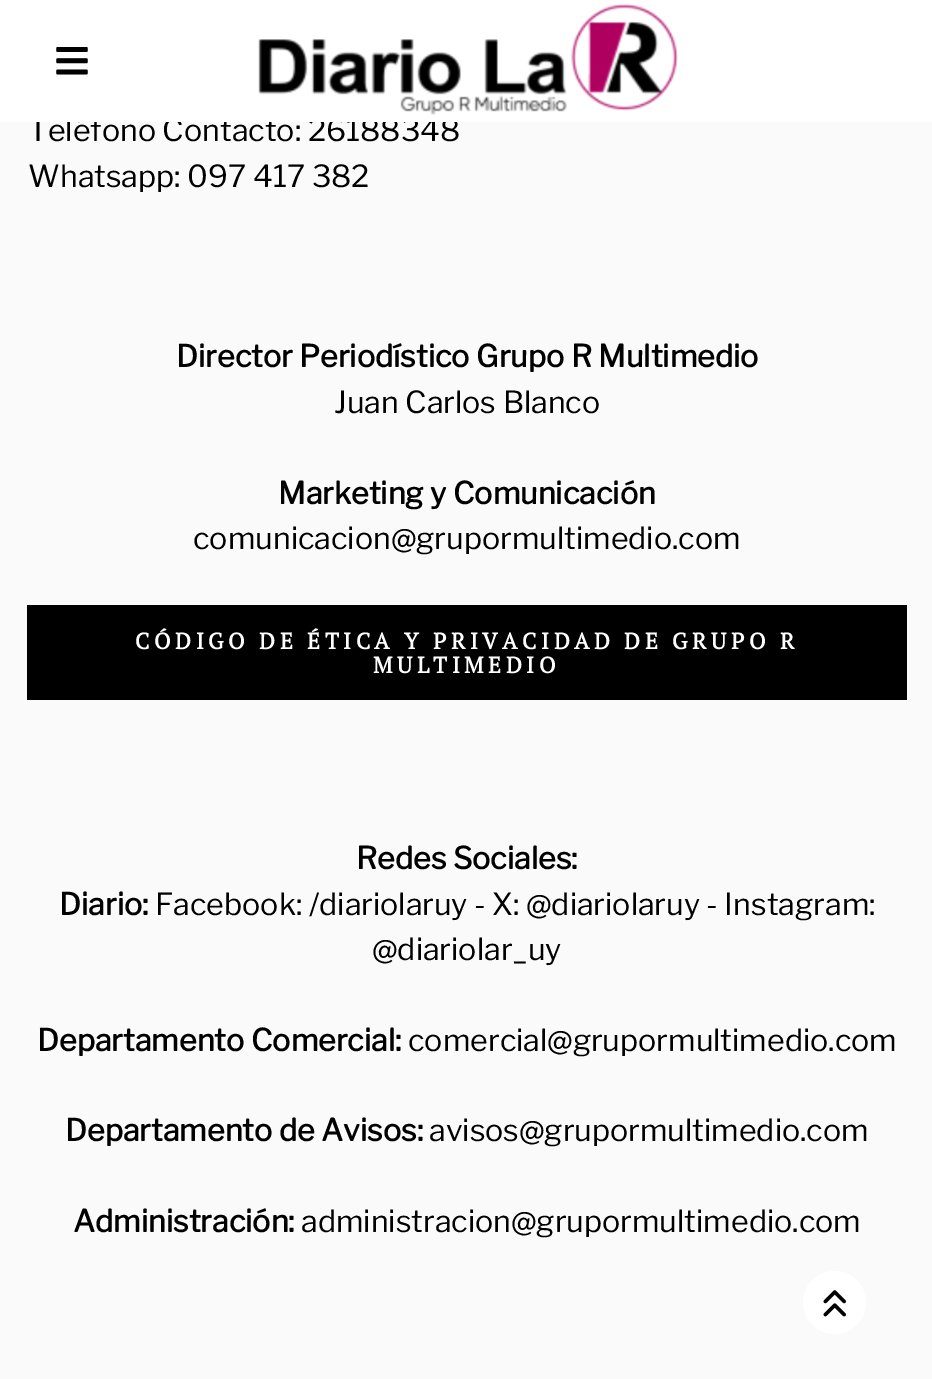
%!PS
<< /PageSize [932 1379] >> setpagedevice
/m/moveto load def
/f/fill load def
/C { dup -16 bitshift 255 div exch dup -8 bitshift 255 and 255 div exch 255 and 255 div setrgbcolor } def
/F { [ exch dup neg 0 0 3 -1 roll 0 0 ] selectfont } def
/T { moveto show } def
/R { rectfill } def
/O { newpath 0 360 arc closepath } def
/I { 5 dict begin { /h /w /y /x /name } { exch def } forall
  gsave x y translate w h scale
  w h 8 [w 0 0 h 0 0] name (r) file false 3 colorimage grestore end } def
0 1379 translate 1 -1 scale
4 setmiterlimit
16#FAFAFA C
0 0 932 1379 R
/LibreFranklin-Thin 30.4 F
16#000000 C
(Teléfono Contacto: 26188348) 28 141 T
16#FFFFFF C
0 0 932 122 R
(1.rgb) 56 47 32 28 I
(2.rgb) 258 3 420 112 I
16#000000 C
(Whatsapp: 097 417 382) 28 187 T
/LibreFranklin-Bold 30.4 F
(Director Periodístico Grupo R Multimedio) 176 367 T
/LibreFranklin-Thin 30.4 F
(Juan Carlos Blanco) 334 413 T
/LibreFranklin-Bold 30.4 F
(Marketing y Comunicación) 278 504 T
/LibreFranklin-Thin 30.4 F
(comunicacion@grupormultimedio.com) 193 549 T
27 605 880 95 R
/PTSerif-Bold 22.5 F
16#FFFFFF C
135 649 m 4.5 0 (CÓDIGO DE ÉTICA Y PRIVACIDAD DE GRUPO R) ashow
373 673 m 4.5 0 (MULTIMEDIO) ashow
/LibreFranklin-Bold 30.4 F
16#000000 C
(Redes Sociales:) 356 869 T
(Diario:) 59 915 T
/LibreFranklin-Thin 30.4 F
(Facebook: /diariolaruy - X: @diariolaruy - Instagram:) 155 915 T
(@diariolar_uy) 372 960 T
/LibreFranklin-Bold 30.4 F
(Departamento Comercial:) 37 1051 T
/LibreFranklin-Thin 30.4 F
(comercial@grupormultimedio.com) 408 1051 T
/LibreFranklin-Bold 30.4 F
(Departamento de Avisos:) 65 1141 T
/LibreFranklin-Thin 30.4 F
(avisos@grupormultimedio.com) 429 1141 T
/LibreFranklin-Bold 30.4 F
(Administración:) 73 1232 T
/LibreFranklin-Thin 30.4 F
(administracion@grupormultimedio.com) 301 1232 T
16#FFFFFF C
834.5 1302.5 31.5 O f
(3.rgb) 823 1290 23 27 I
showpage
